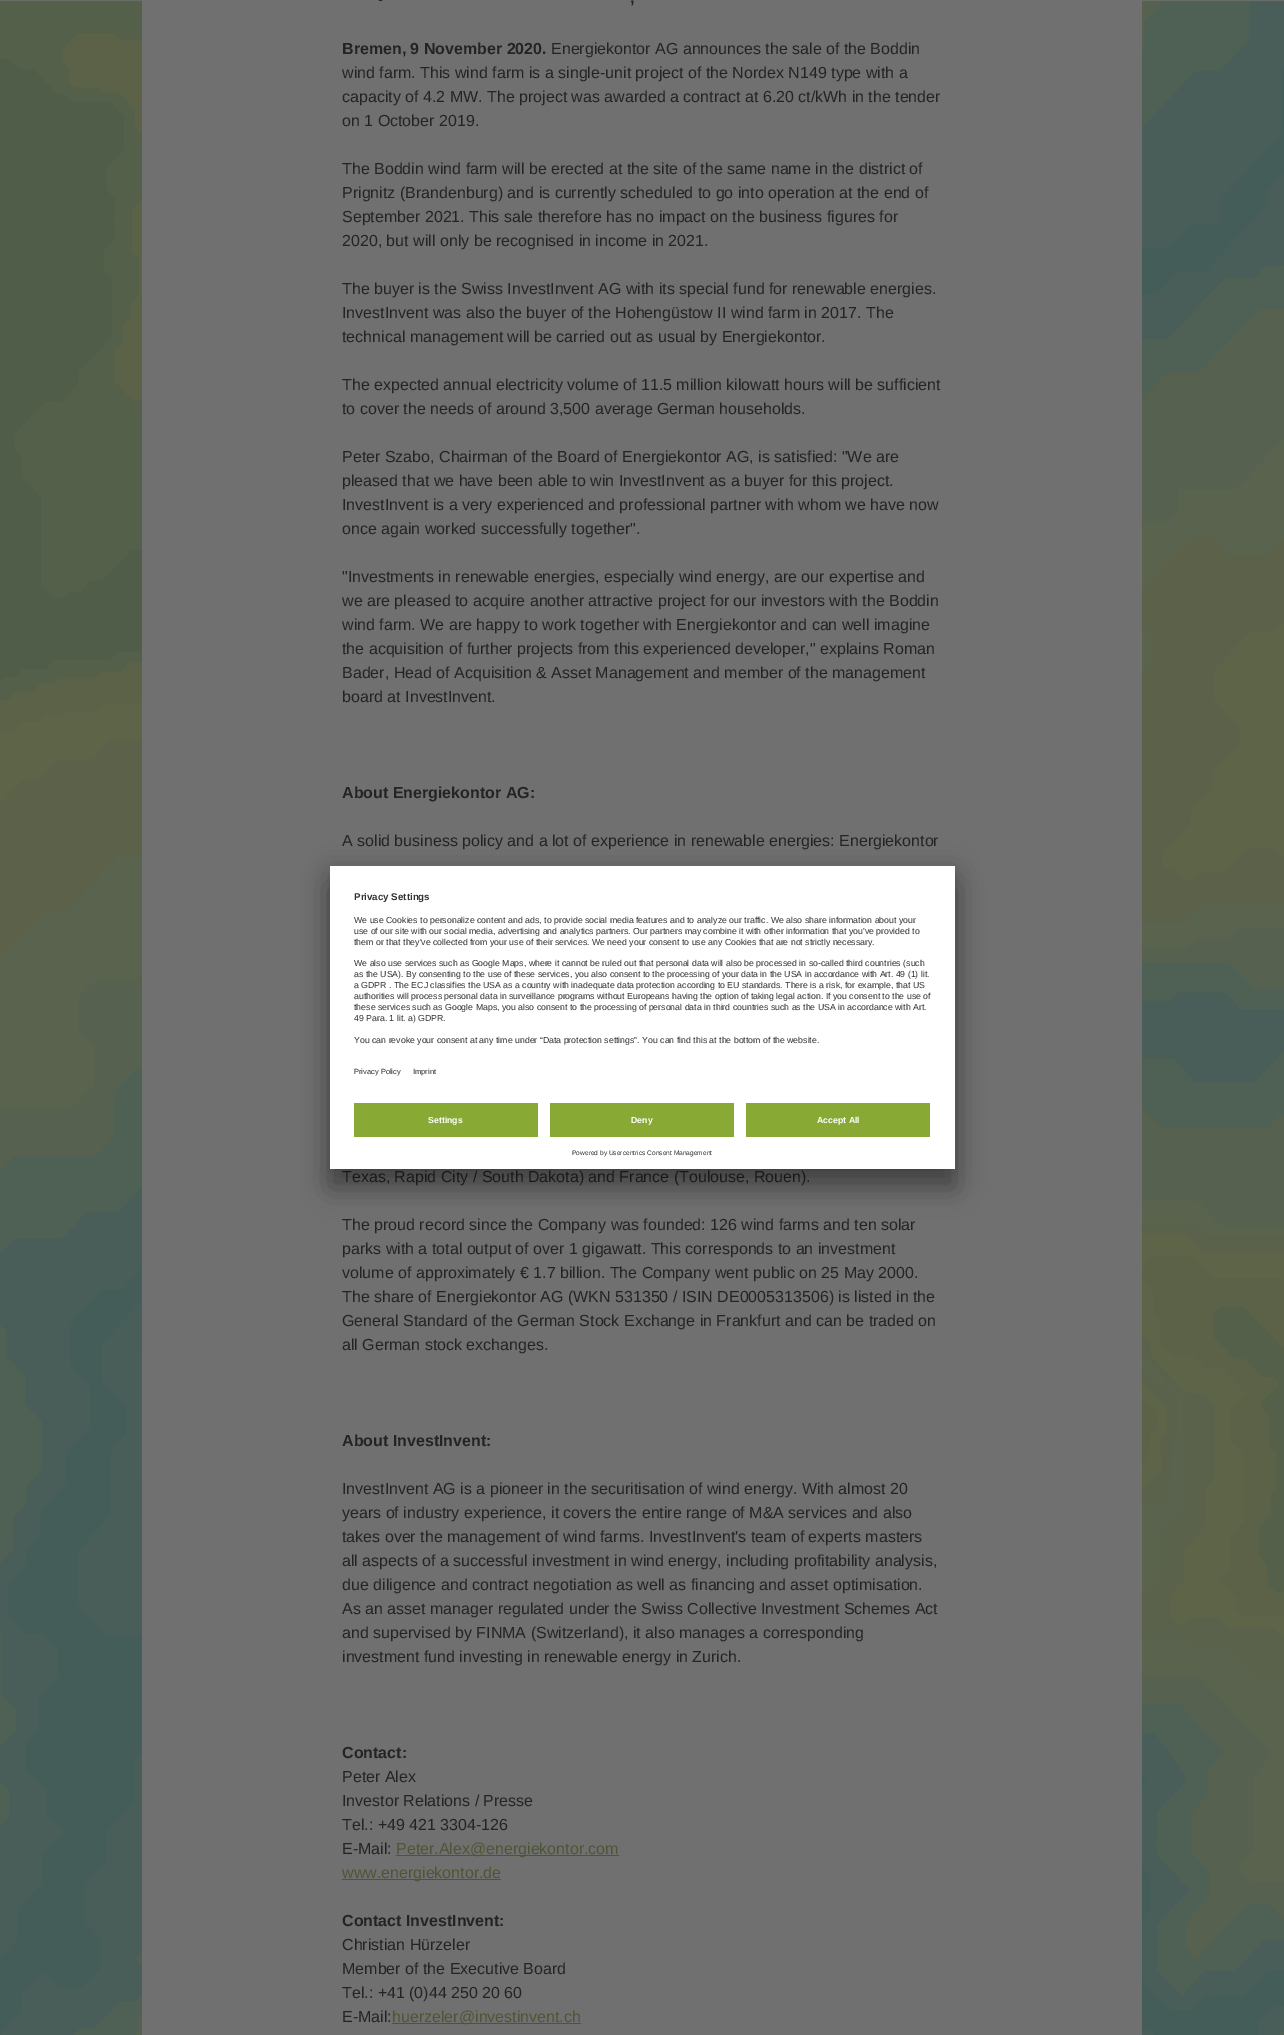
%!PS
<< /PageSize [1284 2035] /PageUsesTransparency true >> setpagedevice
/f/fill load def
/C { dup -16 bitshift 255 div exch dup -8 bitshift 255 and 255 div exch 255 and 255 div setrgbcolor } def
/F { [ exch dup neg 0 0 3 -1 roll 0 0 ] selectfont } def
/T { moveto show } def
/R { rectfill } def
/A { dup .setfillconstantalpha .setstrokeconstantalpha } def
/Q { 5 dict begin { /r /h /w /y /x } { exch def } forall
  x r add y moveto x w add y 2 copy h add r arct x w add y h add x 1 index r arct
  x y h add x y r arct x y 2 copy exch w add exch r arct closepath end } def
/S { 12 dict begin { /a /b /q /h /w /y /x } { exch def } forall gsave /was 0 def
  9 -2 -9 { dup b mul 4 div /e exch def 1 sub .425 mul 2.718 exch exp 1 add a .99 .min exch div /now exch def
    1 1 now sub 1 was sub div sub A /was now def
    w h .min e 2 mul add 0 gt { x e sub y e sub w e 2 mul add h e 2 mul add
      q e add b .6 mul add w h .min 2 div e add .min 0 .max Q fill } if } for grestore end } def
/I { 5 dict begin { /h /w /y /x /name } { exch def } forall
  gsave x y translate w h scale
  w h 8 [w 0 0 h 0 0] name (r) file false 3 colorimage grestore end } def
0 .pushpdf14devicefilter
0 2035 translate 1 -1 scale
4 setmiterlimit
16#FFFFFF C
0 0 1284 2035 R
(1.rgb) 0 0 1284 2035 I
16#707070 C
142 0 1000 2035 R
16#242424 C
378 -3 5 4 2.5 Q f
/LiberationSans-Bold 16 F
(,) 630 3 T
(Bremen, 9 November 2020.) 342 54 T
/LiberationSans-Regular 16 F
(Energiekontor AG announces the sale of the Boddin) 551 54 T
(wind farm. This wind farm is a single-unit project of the Nordex N149 type with a) 342 78 T
(capacity of 4.2 MW. The project was awarded a contract at 6.20 ct/kWh in the tender) 342 102 T
(on 1 October 2019.) 342 126 T
(The Boddin wind farm will be erected at the site of the same name in the district of) 342 174 T
(Prignitz \(Brandenburg\) and is currently scheduled to go into operation at the end of) 342 198 T
(September 2021. This sale therefore has no impact on the business figures for) 342 222 T
(2020, but will only be recognised in income in 2021.) 342 246 T
(The buyer is the Swiss InvestInvent AG with its special fund for renewable energies.) 342 294 T
(InvestInvent was also the buyer of the Hohengüstow II wind farm in 2017. The) 342 318 T
(technical management will be carried out as usual by Energiekontor.) 342 342 T
(The expected annual electricity volume of 11.5 million kilowatt hours will be sufficient) 342 390 T
(to cover the needs of around 3,500 average German households.) 342 414 T
(Peter Szabo, Chairman of the Board of Energiekontor AG, is satisfied: "We are) 342 462 T
(pleased that we have been able to win InvestInvent as a buyer for this project.) 342 486 T
(InvestInvent is a very experienced and professional partner with whom we have now) 342 510 T
(once again worked successfully together".) 342 534 T
("Investments in renewable energies, especially wind energy, are our expertise and) 342 582 T
(we are pleased to acquire another attractive project for our investors with the Boddin) 342 606 T
(wind farm. We are happy to work together with Energiekontor and can well imagine) 342 630 T
(the acquisition of further projects from this experienced developer," explains Roman) 342 654 T
(Bader, Head of Acquisition & Asset Management and member of the management) 342 678 T
(board at InvestInvent.) 342 702 T
/LiberationSans-Bold 16 F
(About Energiekontor AG:) 342 798 T
/LiberationSans-Regular 16 F
(A solid business policy and a lot of experience in renewable energies: Energiekontor) 342 846 T
(Texas, Rapid City / South Dakota\) and France \(Toulouse, Rouen\).) 342 1182 T
(The proud record since the Company was founded: 126 wind farms and ten solar) 342 1230 T
(parks with a total output of over 1 gigawatt. This corresponds to an investment) 342 1254 T
(volume of approximately € 1.7 billion. The Company went public on 25 May 2000.) 342 1278 T
(The share of Energiekontor AG \(WKN 531350 / ISIN DE0005313506\) is listed in the) 342 1302 T
(General Standard of the German Stock Exchange in Frankfurt and can be traded on) 342 1326 T
(all German stock exchanges.) 342 1350 T
/LiberationSans-Bold 16 F
(About InvestInvent:) 342 1446 T
/LiberationSans-Regular 16 F
(InvestInvent AG is a pioneer in the securitisation of wind energy. With almost 20) 342 1494 T
(years of industry experience, it covers the entire range of M&A services and also) 342 1518 T
(takes over the management of wind farms. InvestInvent's team of experts masters) 342 1542 T
(all aspects of a successful investment in wind energy, including profitability analysis,) 342 1566 T
(due diligence and contract negotiation as well as financing and asset optimisation.) 342 1590 T
(As an asset manager regulated under the Swiss Collective Investment Schemes Act) 342 1614 T
(and supervised by FINMA \(Switzerland\), it also manages a corresponding) 342 1638 T
(investment fund investing in renewable energy in Zurich.) 342 1662 T
/LiberationSans-Bold 16 F
(Contact:) 342 1758 T
/LiberationSans-Regular 16 F
(Peter Alex) 342 1782 T
(Investor Relations / Presse) 342 1806 T
(Tel.: +49 421 3304-126) 342 1830 T
(E-Mail:) 342 1854 T
16#4D5633 C
396 1855 223 1 R
(Peter.Alex@energiekontor.com) 396 1854 T
342 1879 159 1 R
(www.energiekontor.de) 342 1878 T
/LiberationSans-Bold 16 F
16#242424 C
(Contact InvestInvent:) 342 1926 T
/LiberationSans-Regular 16 F
(Christian Hürzeler) 342 1950 T
(Member of the Executive Board) 342 1974 T
(Tel.: +41 \(0\)44 250 20 60) 342 1998 T
(E-Mail:) 342 2022 T
16#4D5633 C
392 2023 189 1 R
(huerzeler@investinvent.ch) 392 2022 T
16#000000 C
330 886 625 303 0 14 .3 S
330 871 625 303 0 13 .22 S
16#FFFFFF C
330 866 625 303 R
/LiberationSans-Bold 9.75 F
16#303030 C
(Privacy Settings) 354 900 T
/LiberationSans-Regular 8.75 F
(We use Cookies to personalize content and ads, to provide social media features and to analyze our traffic. We also share information about your) 354 923 T
(use of our site with our social media, advertising and analytics partners. Our partners may combine it with other information that you've provided to) 354 934 T
(them or that they've collected from your use of their services. We need your consent to use any Cookies that are not strictly necessary.) 354 945 T
(We also use services such as Google Maps, where it cannot be ruled out that personal data will also be processed in so-called third countries \(such) 354 966 T
(as the USA\). By consenting to the use of these services, you also consent to the processing of your data in the USA in accordance with Art. 49 \(1\) lit.) 354 977 T
(a GDPR . The ECJ classifies the USA as a country with inadequate data protection according to EU standards. There is a risk, for example, that US) 354 988 T
(authorities will process personal data in surveillance programs without Europeans having the option of taking legal action. If you consent to the use of) 354 999 T
(these services such as Google Maps, you also consent to the processing of personal data in third countries such as the USA in accordance with Art.) 354 1010 T
(49 Para. 1 lit. a\) GDPR.) 354 1021 T
(You can revoke your consent at any time under “Data protection settings”. You can find this at the bottom of the website.) 354 1043 T
/LiberationSans-Regular 7.5 F
(Privacy Policy) 354 1074 T
(Imprint) 413 1074 T
16#88A933 C
354 1103 184 34 R
/LiberationSans-Bold 8.75 F
16#FFFFFF C
(Settings) 428 1123 T
16#88A933 C
550 1103 184 34 R
16#FFFFFF C
(Deny) 631 1123 T
16#88A933 C
746 1103 184 34 R
16#FFFFFF C
(Accept All) 817 1123 T
/LiberationSans-Regular 6.6 F
16#303030 C
(Powered by Usercentrics Consent Management) 572 1155 T
.poppdf14devicefilter showpage
